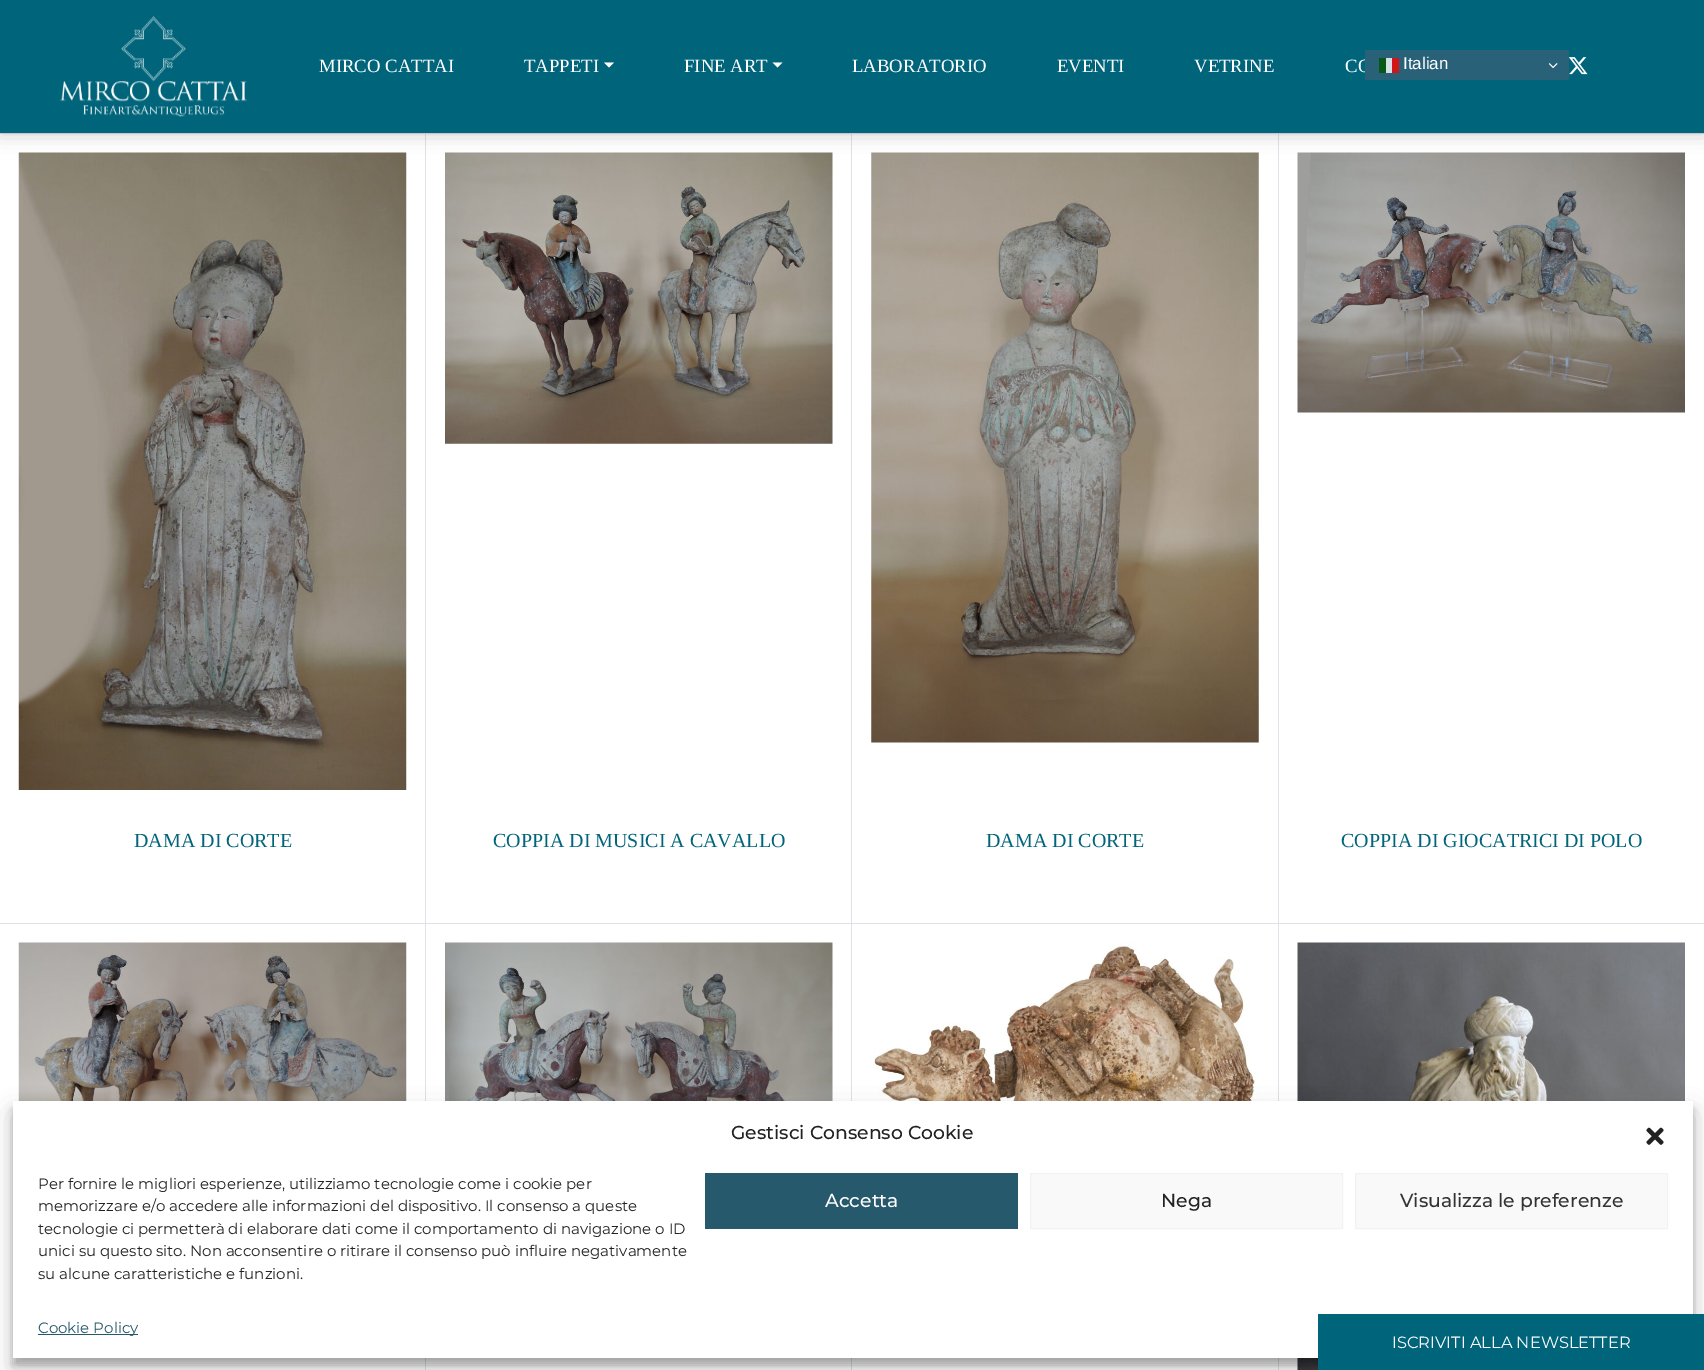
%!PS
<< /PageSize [1704 1370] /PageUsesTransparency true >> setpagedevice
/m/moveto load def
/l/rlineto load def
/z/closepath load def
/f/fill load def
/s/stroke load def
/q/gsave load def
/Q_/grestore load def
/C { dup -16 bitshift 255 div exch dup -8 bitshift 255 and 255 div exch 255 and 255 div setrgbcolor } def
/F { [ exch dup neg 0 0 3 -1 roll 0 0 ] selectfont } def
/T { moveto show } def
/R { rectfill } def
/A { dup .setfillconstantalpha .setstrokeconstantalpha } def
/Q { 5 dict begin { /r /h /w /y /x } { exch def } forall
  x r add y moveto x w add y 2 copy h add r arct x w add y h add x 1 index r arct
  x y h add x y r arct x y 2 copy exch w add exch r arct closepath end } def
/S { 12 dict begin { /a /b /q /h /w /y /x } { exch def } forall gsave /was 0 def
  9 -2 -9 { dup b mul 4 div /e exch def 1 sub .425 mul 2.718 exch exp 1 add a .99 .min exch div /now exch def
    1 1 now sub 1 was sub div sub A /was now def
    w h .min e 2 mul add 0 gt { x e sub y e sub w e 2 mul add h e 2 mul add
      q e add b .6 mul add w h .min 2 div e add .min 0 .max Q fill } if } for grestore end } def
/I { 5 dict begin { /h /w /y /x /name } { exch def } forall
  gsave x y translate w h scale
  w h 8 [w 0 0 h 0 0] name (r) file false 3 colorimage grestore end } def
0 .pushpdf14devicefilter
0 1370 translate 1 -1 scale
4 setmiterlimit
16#FFFFFF C
0 0 1704 1370 R
16#DEE2E6 C
0 133 1704 1 R
425 133 1 790 R
(4.rgb) 18 152 389 638 I
851 133 1 790 R
(5.rgb) 445 152 388 292 I
1278 133 1 790 R
(6.rgb) 871 152 388 591 I
(7.rgb) 1297 152 388 261 I
16#333333 C
0 0 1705 133 0 9.5 .3 S
16#00647A C
0 0 1704 133 R
/LiberationSerif-Regular 18.75 F
16#FFFFFF C
(CO) 1345 72 T
16#296278 C
1365 50 204 30 R
16#085918 C
1379 58 7 15 R
16#D4E0E4 C
1386 58 6 15 R
16#D21418 C
1392 58 7 15 R
/LiberationSans-Regular 17 F
16#FFFFFF C
(Italian) 1403 69 T
(1.rgb) 1549 63 9 6 I
(2.rgb) 60 16 187 101 I
/LiberationSerif-Regular 18.75 F
(MIRCO CATTAI) 319 72 T
(TAPPETI) 524 72 T
604 62.5 m 10 0 l -5 5 l z f
(FINE ART) 684 72 T
772.5 62.5 m 10 0 l -5 5 l z f
(LABORATORIO) 852 72 T
(EVENTI) 1057 72 T
(VETRINE) 1194 72 T
(3.rgb) 1569 57 19 18 I
/LiberationSerif-Regular 20 F
16#00647A C
(DAMA DI CORTE) 134 847 T
(COPPIA DI MUSICI A CAVALLO) 493 847 T
(DAMA DI CORTE) 986 847 T
(COPPIA DI GIOCATRICI DI POLO) 1341 847 T
16#DEE2E6 C
0 923 1704 1 R
425 923 1 447 R
(8.rgb) 18 942 389 159 I
851 923 1 447 R
(9.rgb) 445 942 388 159 I
1278 923 1 447 R
(10.rgb) 871 942 388 159 I
(11.rgb) 1297 942 388 428 I
16#000000 C
13 1109 1680 256 0 4 .23 S
13 1114 1680 256 0 12.5 .19 S
16#FFFFFF C
13 1101 1680 257 R
/Montserrat-Medium 18.75 F
16#222222 C
(Gestisci Consenso Cookie) 731 1139 T
(12.rgb) 1646 1127 18 18 I
/Montserrat-Regular 15 F
(Per fornire le migliori esperienze, utilizziamo tecnologie come i cookie per) 38 1189 T
(memorizzare e/o accedere alle informazioni del dispositivo. Il consenso a queste) 38 1211 T
(tecnologie ci permetterà di elaborare dati come il comportamento di navigazione o ID) 38 1234 T
(unici su questo sito. Non acconsentire o ritirare il consenso può influire negativamente) 38 1256 T
(su alcune caratteristiche e funzioni.) 38 1279 T
16#26596C C
705 1173 313 56 R
/Montserrat-Medium 18.75 F
16#FFFFFF C
(Accetta) 825 1207 T
16#F9F9F9 C
1030.5 1173.5 m 312 0 l 0 55 l -312 0 l z q f Q_
16#F2F2F2 C
s
16#222222 C
(Nega) 1161 1207 T
16#F9F9F9 C
1355.5 1173.5 m 312 0 l 0 55 l -312 0 l z q f Q_
16#F2F2F2 C
s
16#333333 C
(Visualizza le preferenze) 1400 1207 T
16#26596C C
38 1334 100 1 R
/Montserrat-Regular 15 F
(Cookie Policy) 38 1333 T
16#00647A C
1318 1314 386 56 R
/Montserrat-Regular 16.25 F
16#FFFFFF C
(ISCRIVITI ALLA NEWSLETTER) 1392 1348 T
.poppdf14devicefilter showpage
